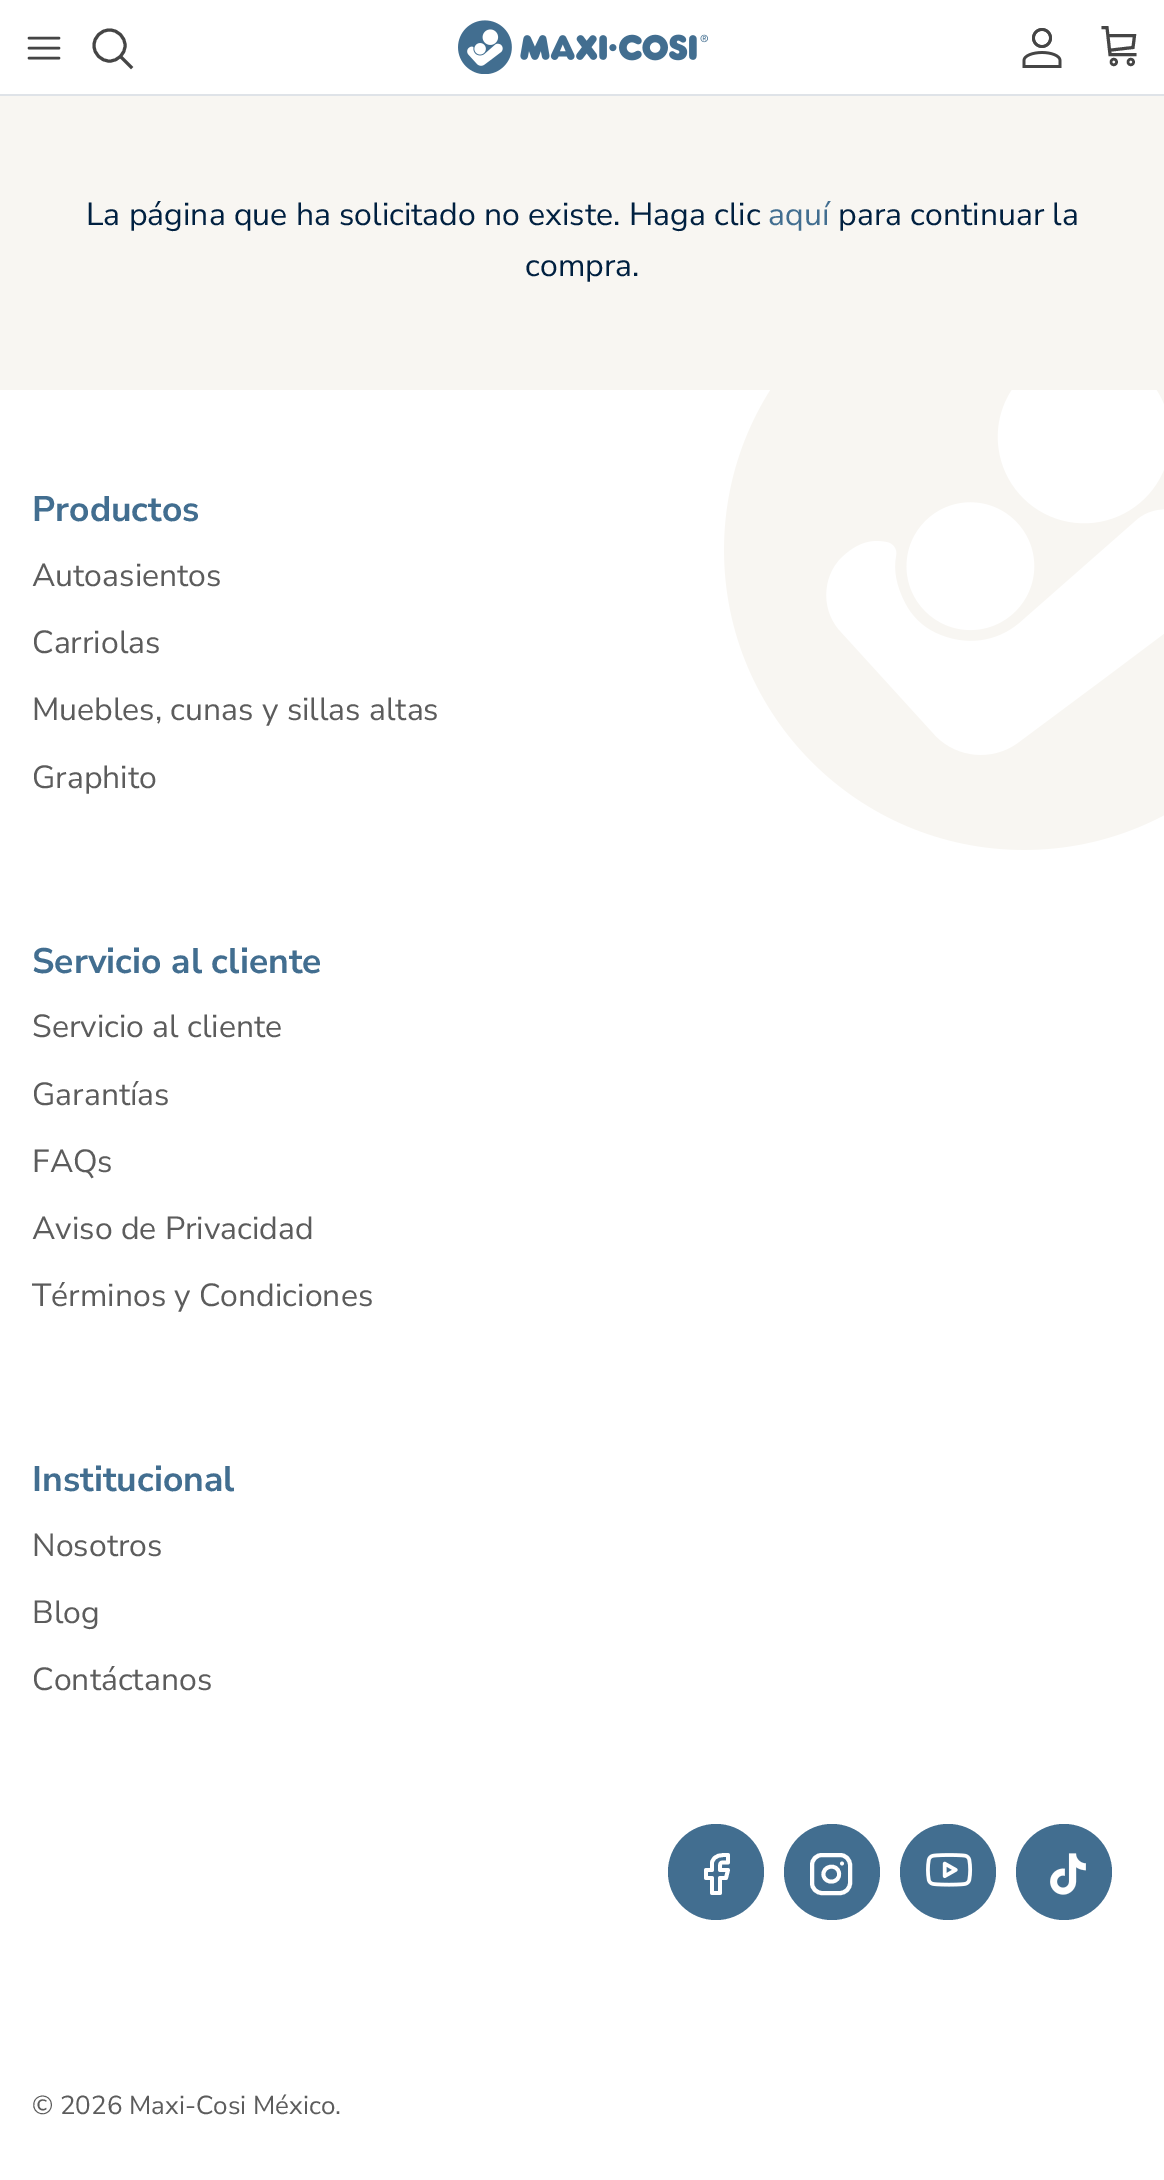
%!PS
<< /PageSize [1164 2180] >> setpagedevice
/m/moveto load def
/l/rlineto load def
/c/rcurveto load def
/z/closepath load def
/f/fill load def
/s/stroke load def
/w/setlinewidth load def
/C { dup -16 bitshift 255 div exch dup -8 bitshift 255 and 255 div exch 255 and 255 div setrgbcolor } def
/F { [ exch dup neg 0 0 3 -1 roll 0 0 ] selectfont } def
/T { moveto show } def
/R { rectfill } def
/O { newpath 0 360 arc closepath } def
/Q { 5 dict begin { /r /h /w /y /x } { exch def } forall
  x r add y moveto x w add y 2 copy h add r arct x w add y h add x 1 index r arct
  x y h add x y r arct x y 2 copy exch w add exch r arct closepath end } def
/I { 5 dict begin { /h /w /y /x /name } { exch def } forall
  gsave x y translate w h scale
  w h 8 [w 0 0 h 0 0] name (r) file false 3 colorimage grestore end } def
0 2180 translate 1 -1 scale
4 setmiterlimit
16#F8F6F2 C
0 0 1164 2180 R
16#FFFFFF C
0 0 1164 94 R
16#DFE3E8 C
0 94 1164 2 R
16#454545 C
2.5 w
1 setlinecap
1 setlinejoin
29 48 m 30 0 l 29 38 m 30 0 l 29 58 m 30 0 l s
3 w
0 setlinecap
0 setlinejoin
109.5 45.5 15.5 O s
2 setlinecap
122 58 m 9 9 l s
(1.rgb) 458 20 250 54 I
(2.rgb) 1022 28 40 40 I
1103 27.5 m 4 0 l 3 27 l 25 0 l 1108.5 35.5 m 26 0 l -1.5 12 l -21.5 2.5 l s
2.5 w
0 setlinecap
1113.8 62 2.8 O s
1130.8 62 2.8 O s
/NunitoSans-Regular 32 F
16#002040 C
(La página que ha solicitado no existe. Haga clic) 86 225 T
16#426E90 C
(aquí) 768 225 T
16#002040 C
(para continuar la) 838 225 T
(compra.) 525 276 T
16#FFFFFF C
0 390 1164 1790 R
(3.rgb) 724 390 440 460 I
/NunitoSans-Bold 35.5 F
16#426E90 C
(Productos) 32 521 T
/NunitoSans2-Regular 32 F
16#5C5C5C C
(Autoasientos) 32 586 T
(Carriolas) 32 653 T
(Muebles, cunas y sillas altas) 32 720 T
(Graphito) 32 788 T
/NunitoSans-Bold 35.5 F
16#426E90 C
(Servicio al cliente) 32 973 T
/NunitoSans2-Regular 32 F
16#5C5C5C C
(Servicio al cliente) 32 1037 T
(Garantías) 32 1105 T
(FAQs) 32 1172 T
(Aviso de Privacidad) 32 1239 T
(Términos y Condiciones) 32 1306 T
/NunitoSans-Bold 35.5 F
16#426E90 C
(Institucional) 32 1491 T
/NunitoSans2-Regular 32 F
16#5C5C5C C
(Nosotros) 32 1556 T
(Blog) 32 1623 T
(Contáctanos) 32 1690 T
16#426E90 C
716 1872 48 O f
16#FFFFFF C
3.8 w
1 setlinecap
1 setlinejoin
728 1855 m -6.5 0 -14 -.5 -16 7.5 c 0 7.5 l -6 0 l 0 8 l 6 0 l 0 15 l 8 0 l 0 -15 l 6 0 l 2 -8 l -8 0 l 0 -8.5 -.5 -7.5 8 -7.5 c z s
16#426E90 C
832 1872 48 O f
16#FFFFFF C
4 w
0 setlinecap
0 setlinejoin
812 1855 38 38 10 Q s
3.8 w
1 setlinecap
1 setlinejoin
839 1873 m 1.5 10 -13.5 12 -15.5 2.5 c -1.5 -10 14 -12.5 15.5 -2.5 c z 842 1863.5 m 0 0 l s
16#426E90 C
948 1872 48 O f
(4.rgb) 926 1853 47 34 I
1064 1872 48 O f
(5.rgb) 1050 1853 36 42 I
/NunitoSans2-Regular 26 F
16#5C5C5C C
(© 2026 Maxi-Cosi México.) 32 2114 T
showpage
